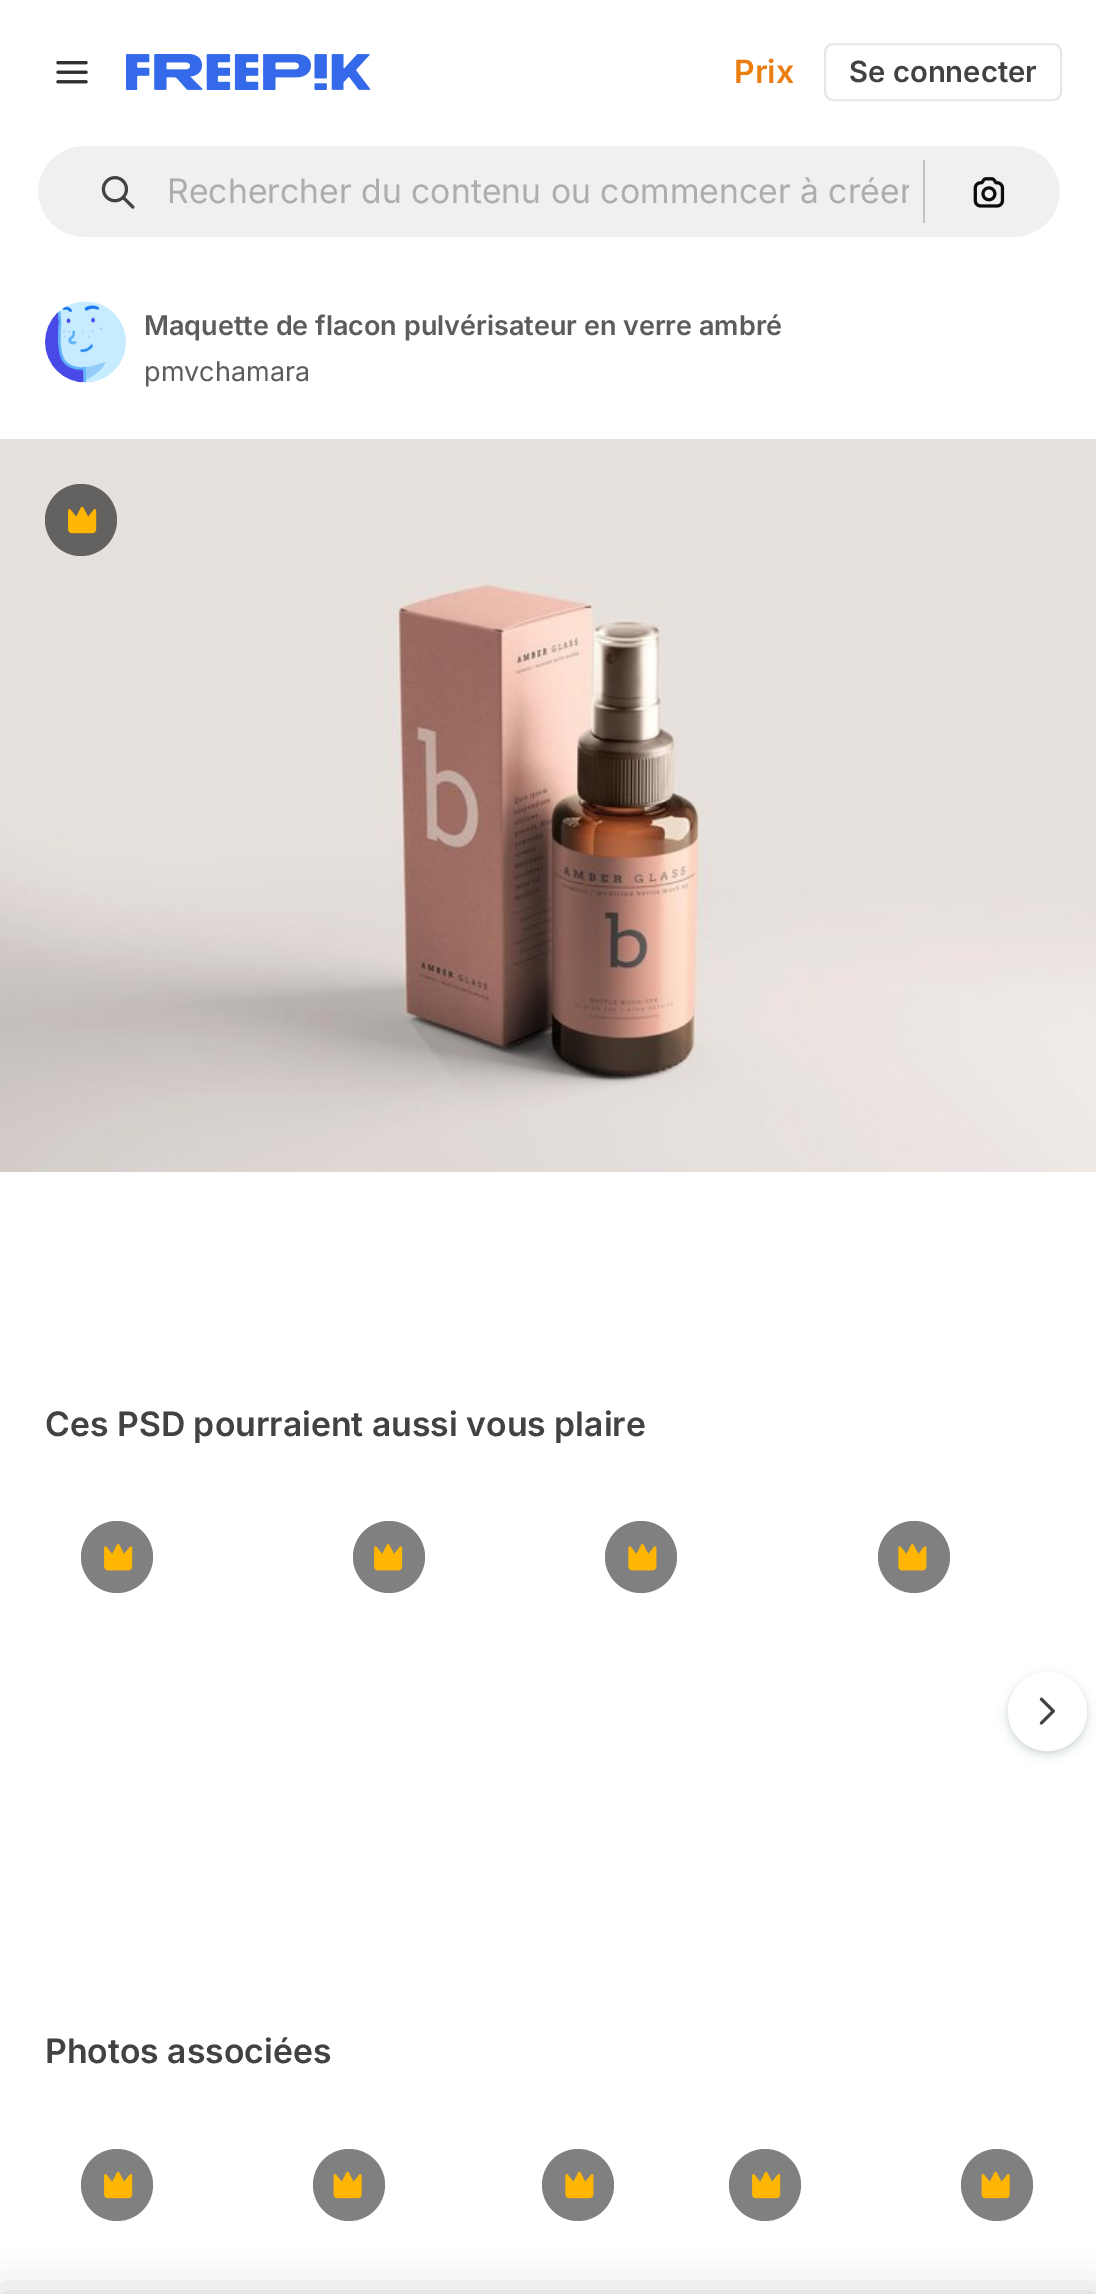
%!PS
<< /PageSize [1096 2294] /PageUsesTransparency true >> setpagedevice
/f/fill load def
/s/stroke load def
/q/gsave load def
/Q_/grestore load def
/w/setlinewidth load def
/C { dup -16 bitshift 255 div exch dup -8 bitshift 255 and 255 div exch 255 and 255 div setrgbcolor } def
/F { [ exch dup neg 0 0 3 -1 roll 0 0 ] selectfont } def
/T { moveto show } def
/R { rectfill } def
/A { dup .setfillconstantalpha .setstrokeconstantalpha } def
/O { newpath 0 360 arc closepath } def
/Q { 5 dict begin { /r /h /w /y /x } { exch def } forall
  x r add y moveto x w add y 2 copy h add r arct x w add y h add x 1 index r arct
  x y h add x y r arct x y 2 copy exch w add exch r arct closepath end } def
/S { 12 dict begin { /a /b /q /h /w /y /x } { exch def } forall gsave /was 0 def
  9 -2 -9 { dup b mul 4 div /e exch def 1 sub .425 mul 2.718 exch exp 1 add a .99 .min exch div /now exch def
    1 1 now sub 1 was sub div sub A /was now def
    w h .min e 2 mul add 0 gt { x e sub y e sub w e 2 mul add h e 2 mul add
      q e add b .6 mul add w h .min 2 div e add .min 0 .max Q fill } if } for grestore end } def
/I { 5 dict begin { /h /w /y /x /name } { exch def } forall
  gsave x y translate w h scale
  w h 8 [w 0 0 h 0 0] name (r) file false 3 colorimage grestore end } def
0 .pushpdf14devicefilter
0 2294 translate 1 -1 scale
4 setmiterlimit
16#FFFFFF C
0 0 1096 2294 R
(1.rgb) 56 61 32 23 I
(2.rgb) 126 54 245 36 I
/Inter-SemiBold 32 F
16#EA7E11 C
(Prix) 734 83 T
16#E7E7E7 C
2 w
825 44 236 56 8 Q s
/Inter-SemiBold 29.25 F
16#424242 C
(Se connecter) 849 82 T
16#F0F0F0 C
37 145 1024 93 46.5 Q q f Q_
16#FFFFFF C
s
(3.rgb) 101 176 34 33 I
q
167 169 742 43 rectclip
/Inter-Regular 33.75 F
16#ADADAD C
(Rechercher du contenu ou commencer à créer) 167 203 T
Q_
16#C3C3C3 C
923 160 2 63 R
(4.rgb) 973 177 32 31 I
(5.rgb) 45 301 81 82 I
/Inter-SemiBold 27 F
16#5C5C5C C
(Maquette de flacon pulvérisateur en verre ambré) 144 335 T
/Inter-Regular 27 F
(pmvchamara) 144 381 T
(6.rgb) 0 439 1096 733 I
16#646260 C
81 520 36 O f
(7.rgb) 68 506 29 28 I
/Inter-SemiBold 33.75 F
16#424242 C
(Ces PSD pourraient aussi vous plaire) 45 1436 T
16#808080 C
117 1557 36 O f
(8.rgb) 104 1544 29 27 I
389 1557 36 O f
(8.rgb) 374 1544 29 27 I
641 1557 36 O f
(9.rgb) 628 1544 29 27 I
914 1557 36 O f
(9.rgb) 898 1544 29 27 I
16#374957 C
1008 1676 79 79 39.5 5.5 .15 S
1008 1674 79 79 39.5 2 .1 S
16#FFFFFF C
1047.5 1711.5 39.5 O f
(10.rgb) 1039 1697 16 28 I
16#424242 C
(Photos associées) 45 2063 T
16#808080 C
117 2185 36 O f
(11.rgb) 104 2171 29 28 I
349 2185 36 O f
(12.rgb) 333 2171 29 28 I
578 2185 36 O f
(13.rgb) 565 2171 29 28 I
765 2185 36 O f
(11.rgb) 752 2171 29 28 I
997 2185 36 O f
(12.rgb) 981 2171 29 28 I
16#000000 C
0 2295 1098 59 0 20 .2 S
.poppdf14devicefilter showpage
